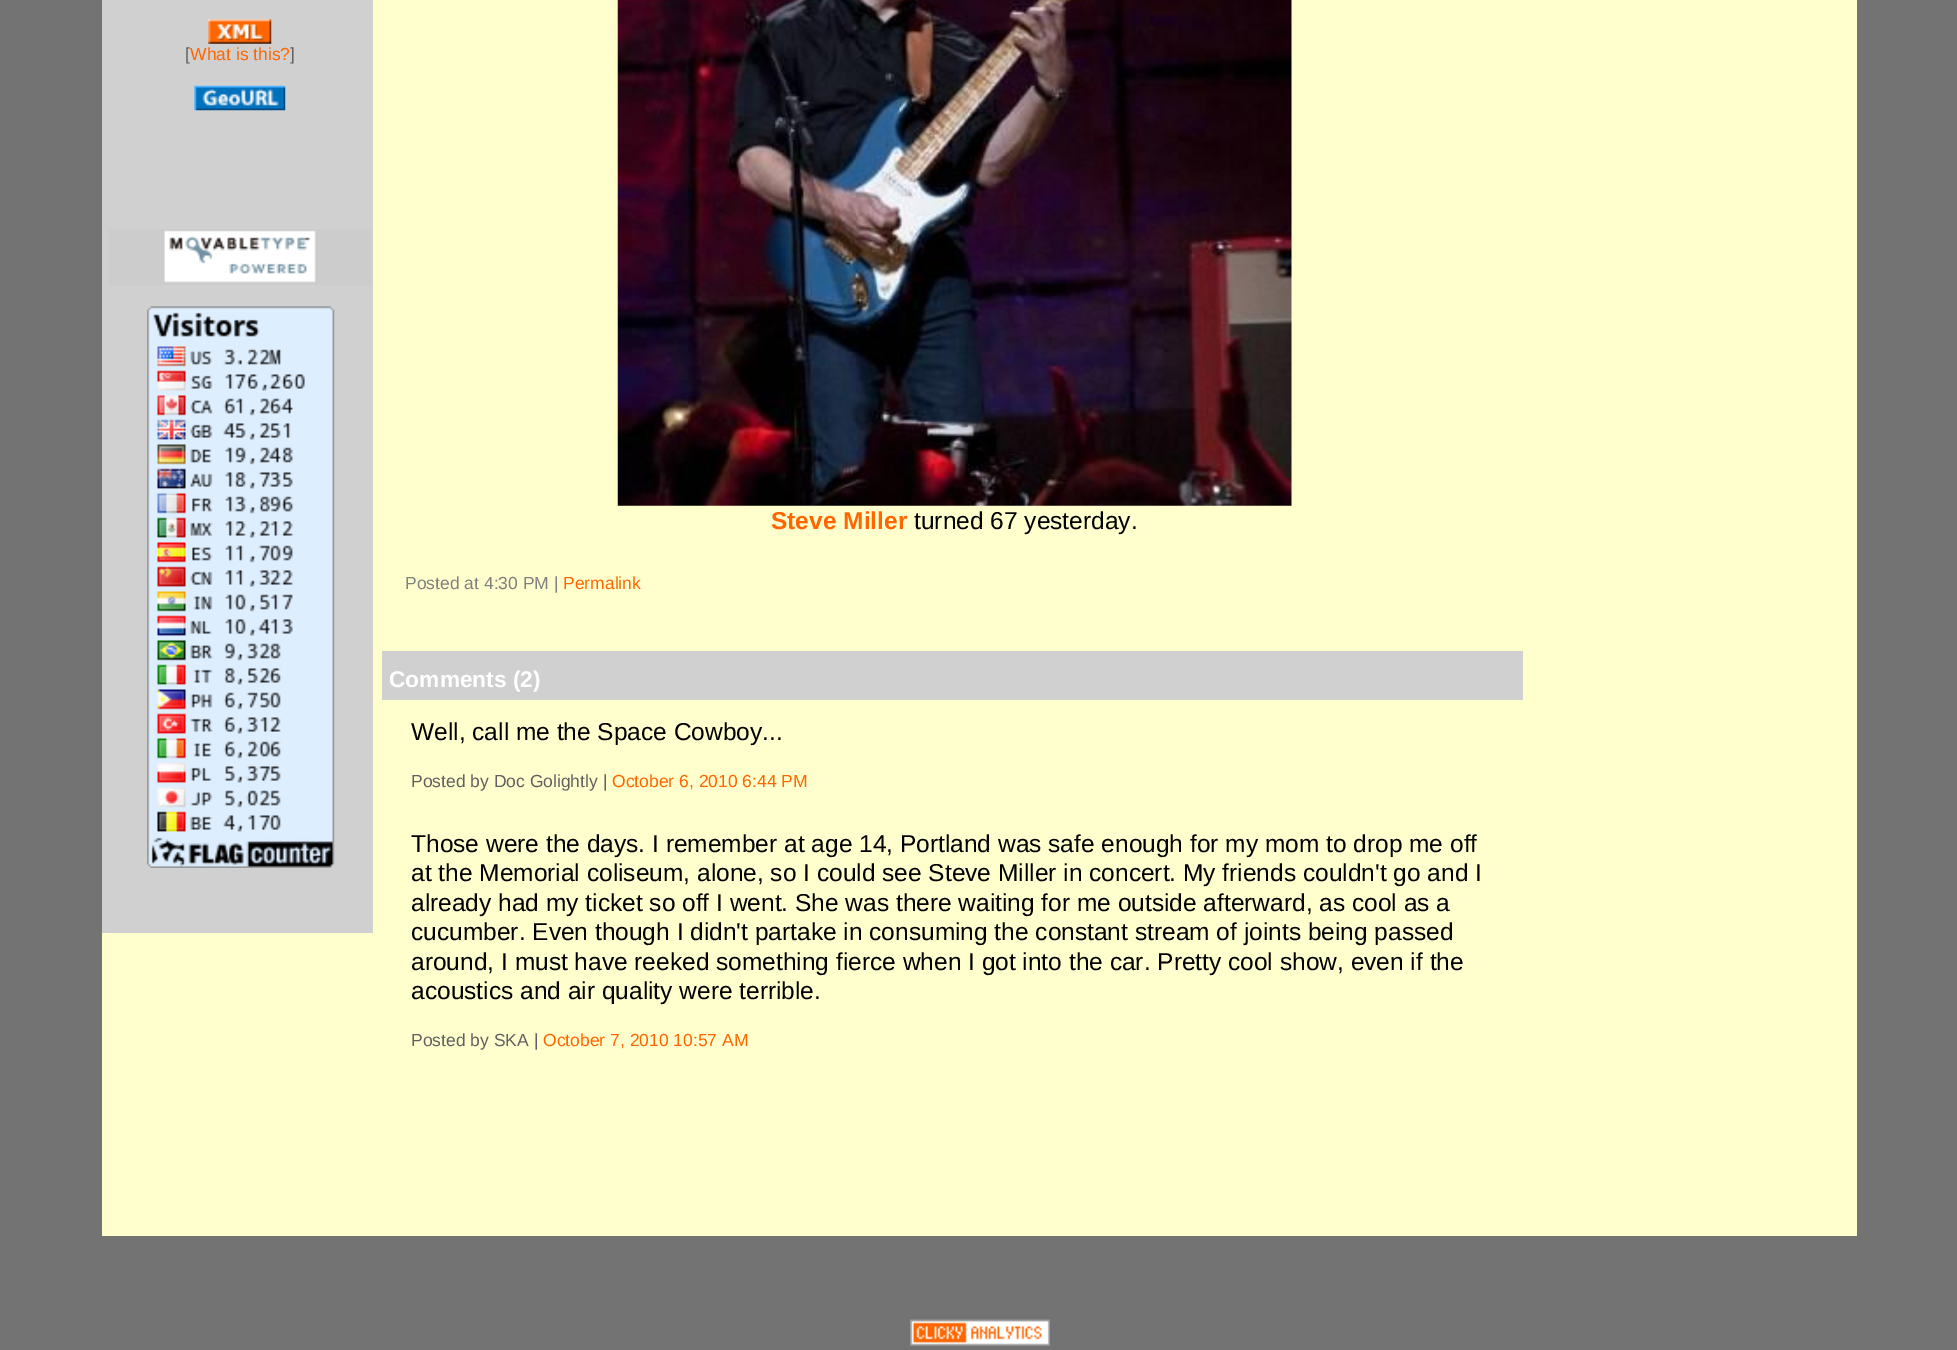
%!PS
<< /PageSize [1957 1350] >> setpagedevice
/C { dup -16 bitshift 255 div exch dup -8 bitshift 255 and 255 div exch 255 and 255 div setrgbcolor } def
/F { [ exch dup neg 0 0 3 -1 roll 0 0 ] selectfont } def
/T { moveto show } def
/R { rectfill } def
/I { 5 dict begin { /h /w /y /x /name } { exch def } forall
  gsave x y translate w h scale
  w h 8 [w 0 0 h 0 0] name (r) file false 3 colorimage grestore end } def
0 1350 translate 1 -1 scale
4 setmiterlimit
16#737373 C
0 0 1957 1350 R
16#FFFFCE C
102 0 1755 1236 R
16#D0D0D0 C
102 0 271 933 R
(1.rgb) 208 19 64 25 I
/LiberationSans-Regular 17.5 F
16#606060 C
([) 185 60 T
16#FF6600 C
(What is this?) 190 60 T
16#606060 C
(]) 290 60 T
(2.rgb) 194 85 92 26 I
16#CCCCCC C
109 229 262 56 R
(3.rgb) 164 230 152 53 I
(4.rgb) 147 306 188 562 I
(5.rgb) 617 0 675 506 I
/LiberationSans-Bold 24.5 F
16#FF6600 C
(Steve Miller) 771 529 T
/LiberationSans-Regular 24.5 F
16#000000 C
(turned 67 yesterday.) 914 529 T
/LiberationSans-Regular 17.5 F
16#808080 C
(Posted at 4:30 PM |) 405 589 T
16#FF6600 C
(Permalink) 563 589 T
16#D0D0D0 C
382 651 1141 49 R
/LiberationSans-Bold 22.75 F
16#FFFFFF C
(Comments \(2\)) 389 687 T
/LiberationSans-Regular 24.5 F
16#000000 C
(Well, call me the Space Cowboy...) 411 740 T
/LiberationSans-Regular 17.5 F
16#606060 C
(Posted by Doc Golightly |) 411 787 T
16#FF6600 C
(October 6, 2010 6:44 PM) 612 787 T
/LiberationSans-Regular 24.5 F
16#000000 C
(Those were the days. I remember at age 14, Portland was safe enough for my mom to drop me off) 411 852 T
(at the Memorial coliseum, alone, so I could see Steve Miller in concert. My friends couldn't go and I) 411 881 T
(already had my ticket so off I went. She was there waiting for me outside afterward, as cool as a) 411 911 T
(cucumber. Even though I didn't partake in consuming the constant stream of joints being passed) 411 940 T
(around, I must have reeked something fierce when I got into the car. Pretty cool show, even if the) 411 970 T
(acoustics and air quality were terrible.) 411 999 T
/LiberationSans-Regular 17.5 F
16#606060 C
(Posted by SKA |) 411 1046 T
16#FF6600 C
(October 7, 2010 10:57 AM) 543 1046 T
(6.rgb) 910 1319 140 27 I
showpage
